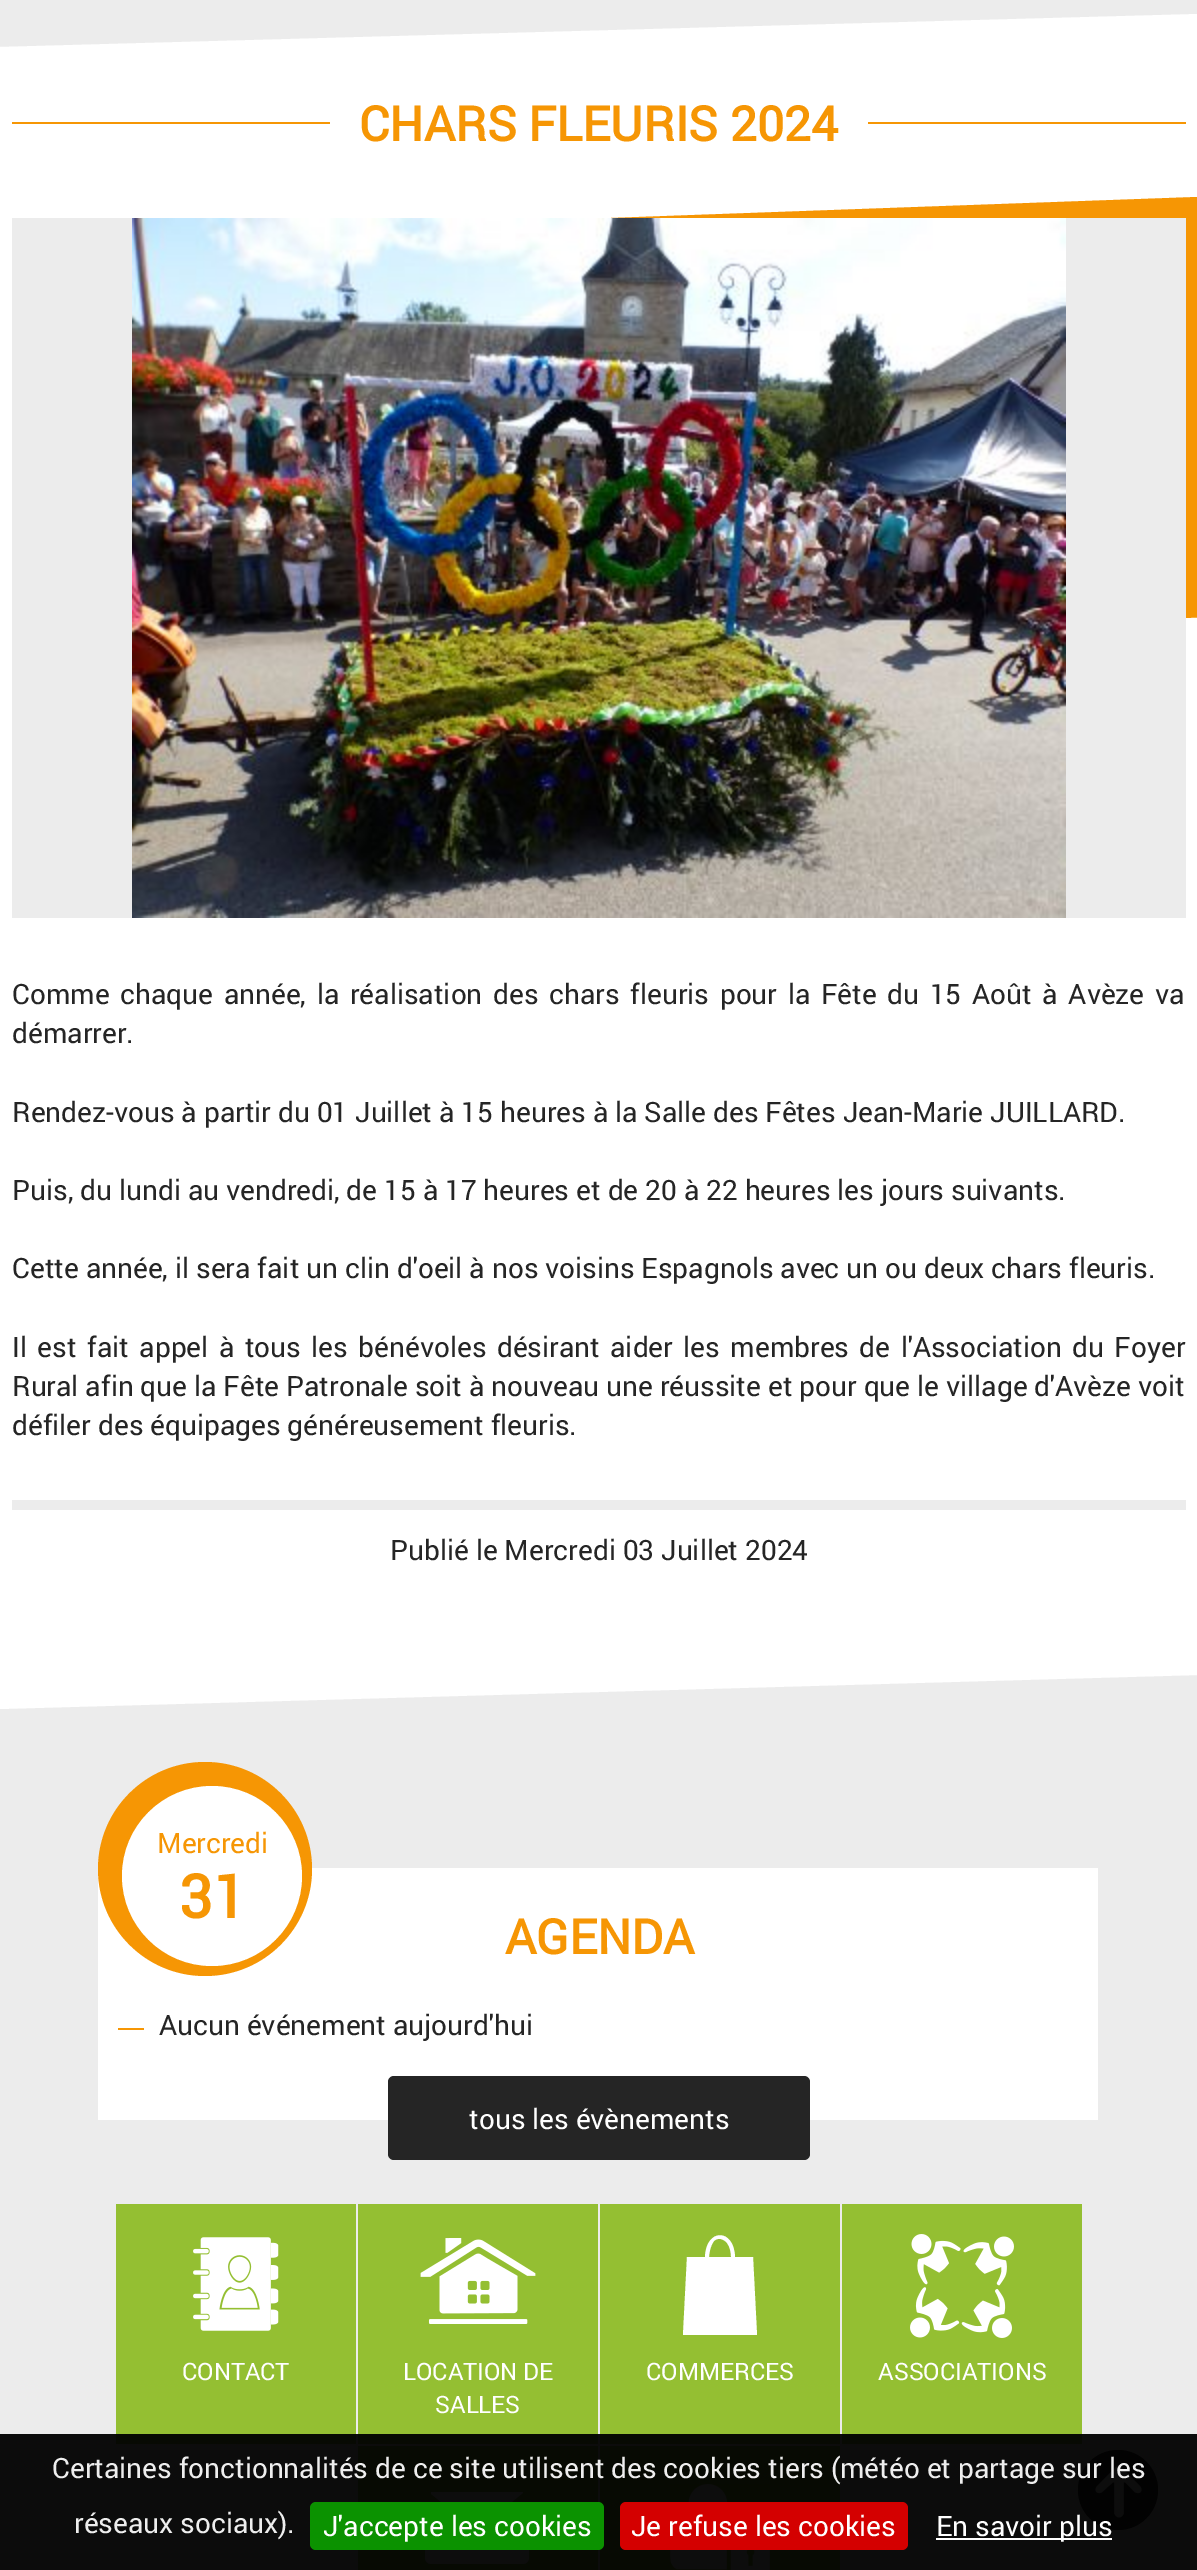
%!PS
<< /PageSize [1197 2570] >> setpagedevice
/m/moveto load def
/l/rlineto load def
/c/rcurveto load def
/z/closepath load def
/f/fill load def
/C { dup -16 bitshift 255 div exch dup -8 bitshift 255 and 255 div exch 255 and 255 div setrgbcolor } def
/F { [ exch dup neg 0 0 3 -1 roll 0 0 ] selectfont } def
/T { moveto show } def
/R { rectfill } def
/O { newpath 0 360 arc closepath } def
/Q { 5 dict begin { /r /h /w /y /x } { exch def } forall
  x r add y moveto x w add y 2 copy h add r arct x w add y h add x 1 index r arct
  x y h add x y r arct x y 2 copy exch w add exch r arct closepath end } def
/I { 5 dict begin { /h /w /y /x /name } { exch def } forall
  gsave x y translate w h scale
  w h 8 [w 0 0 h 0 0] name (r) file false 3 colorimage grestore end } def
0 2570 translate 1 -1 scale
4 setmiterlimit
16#ECECEC C
0 0 1197 2570 R
16#0C0C0C C
0 2434 1197 136 R
16#FFFFFF C
0 256 1197 1243 R
0 47 m 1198 -33 l 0 210 l -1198 33 l z f
16#F69604 C
12 122 1174 2 R
16#FFFFFF C
330 122 538 2 R
/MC-Bold 48 F
16#F69604 C
(CHARS FLEURIS 2024) 359 141 T
611 218 m 586 -21 l 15 420 l -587 21 l z f
16#ECECEC C
12 218 1174 700 R
(1.rgb) 132 218 934 700 I
/MC-Regular 28 F
16#252525 C
12 1004 m 3.75 0 32 (Comme chaque année, la réalisation des chars fleuris pour la Fête du 15 Août à Avèze va) widthshow
(démarrer.) 12 1043 T
(Rendez-vous à partir du 01 Juillet à 15 heures à la Salle des Fêtes Jean-Marie JUILLARD.) 12 1122 T
(Puis, du lundi au vendredi, de 15 à 17 heures et de 20 à 22 heures les jours suivants.) 12 1200 T
(Cette année, il sera fait un clin d'oeil à nos voisins Espagnols avec un ou deux chars fleuris.) 12 1278 T
12 1357 m 3.5 0 32 (Il est fait appel à tous les bénévoles désirant aider les membres de l'Association du Foyer) widthshow
(Rural afin que la Fête Patronale soit à nouveau une réussite et pour que le village d'Avèze voit) 12 1396 T
(défiler des équipages généreusement fleuris.) 12 1435 T
16#FFFFFF C
0 1499 m 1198 -34 l 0 210 l -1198 34 l z f
16#ECECEC C
12 1500 1174 10 R
16#252525 C
(Publié le Mercredi 03 Juillet 2024) 390 1560 T
16#FFFFFF C
98 1868 1000 252 R
16#F69604 C
205 1869 107 O f
16#FFFFFF C
212 1876 90 O f
16#F69604 C
(Mercredi) 157 1853 T
/MC-Bold 60 F
(31) 179 1918 T
/MC-Bold 48 F
(AGENDA) 505 1954 T
118 2028 26 2 R
/MC-Regular 28 F
16#252525 C
(Aucun événement aujourd'hui) 159 2035 T
388 2076 422 84 6 Q f
16#FFFFFF C
(tous les évènements) 469 2129 T
16#94BF32 C
116 2204 240 230 R
16#070A03 C
116 2434 240 10 R
(2.rgb) 193 2237 86 94 I
/MC-Regular 24 F
16#FFFFFF C
(CONTACT) 182 2380 T
16#94BF32 C
358 2204 240 230 R
16#070A03 C
358 2434 240 10 R
(3.rgb) 420 2238 116 86 I
16#FFFFFF C
(LOCATION DE) 403 2380 T
(SALLES) 435 2413 T
16#94BF32 C
600 2204 240 230 R
16#070A03 C
600 2434 240 10 R
16#FFFFFF C
753 2257 m -18 0 l -1 -29 -29 -29 -30 0 c -18 0 l -4 78 l 74 0 l z 714 2241 m 4 -4 10 -2 13 2 c 3 4 4 9 4 14 c -22 0 l 0 -2 1 -11 5 -16 c z f
(COMMERCES) 646 2380 T
16#94BF32 C
842 2204 240 230 R
16#070A03 C
842 2434 240 10 R
(4.rgb) 910 2234 104 104 I
16#FFFFFF C
(ASSOCIATIONS) 878 2380 T
16#070A03 C
358 2446 240 124 R
16#0D0D0D C
483 2535 m -8 6 -13 0 -20 -5 c -36 -28 l -2 0 l 0 56 l 0 3 2 6 6 6 c 92 0 l 4 0 6 -3 6 -6 c 0 -56 l -3 0 l z f
477 2528 m 4 0 8 -4 10 -6 c 36 -29 l 0 -1 l -92 0 l 0 2 l 35 28 l 3 2 7 6 11 6 c z f
16#070A03 C
600 2446 240 124 R
(5.rgb) 670 2484 100 86 I
16#020202 C
1118 2490 40 O f
(6.rgb) 1095 2465 47 53 I
/MC-Regular 28 F
16#EEEEEE C
(Certaines fonctionnalités de ce site utilisent des cookies tiers \(météo et partage sur les) 52 2478 T
(réseaux sociaux\).) 74 2533 T
16#0B9200 C
310 2502 294 48 6 Q f
16#FFFFFF C
(J'accepte les cookies) 323 2536 T
16#D40000 C
620 2502 288 48 6 Q f
16#FFFFFF C
(Je refuse les cookies) 631 2536 T
936 2538 176 2 R
(En savoir plus) 936 2536 T
showpage
